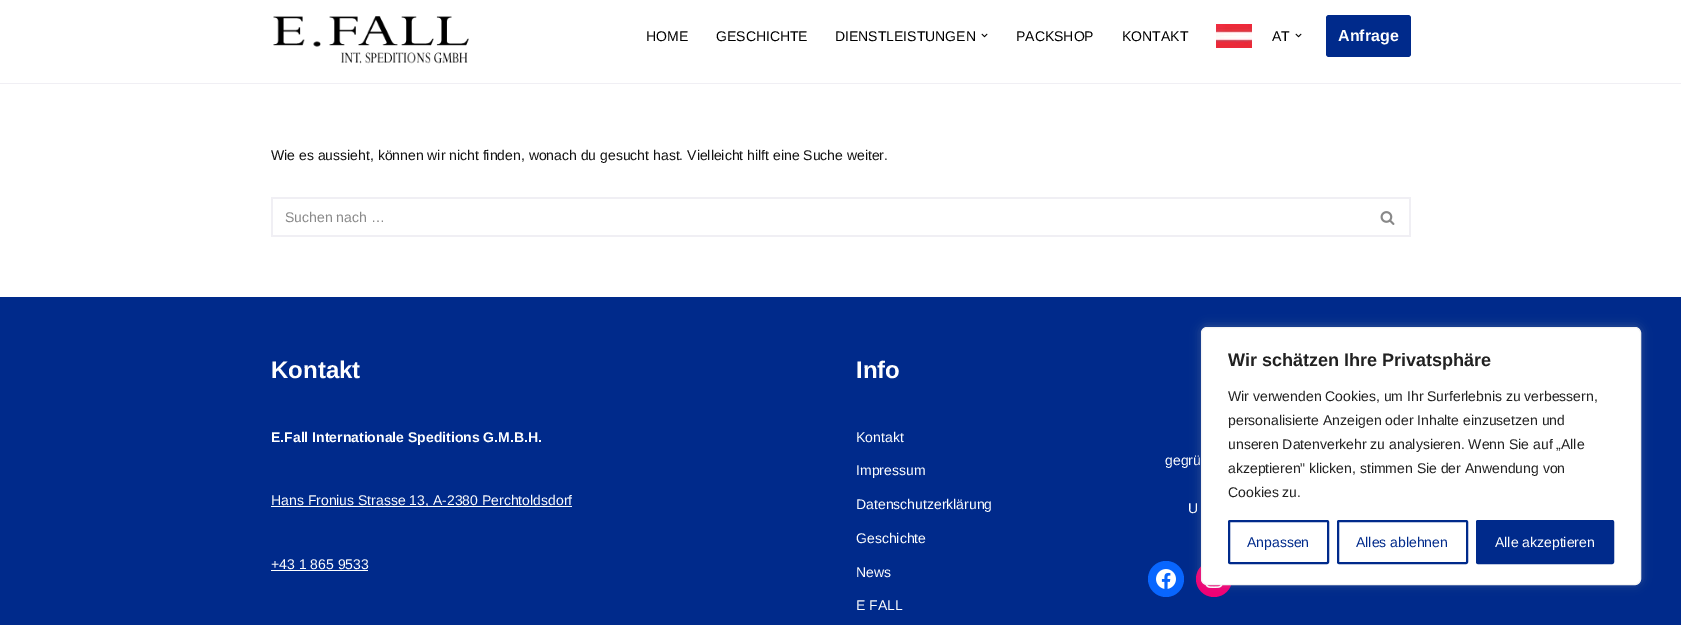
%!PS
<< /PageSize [1681 625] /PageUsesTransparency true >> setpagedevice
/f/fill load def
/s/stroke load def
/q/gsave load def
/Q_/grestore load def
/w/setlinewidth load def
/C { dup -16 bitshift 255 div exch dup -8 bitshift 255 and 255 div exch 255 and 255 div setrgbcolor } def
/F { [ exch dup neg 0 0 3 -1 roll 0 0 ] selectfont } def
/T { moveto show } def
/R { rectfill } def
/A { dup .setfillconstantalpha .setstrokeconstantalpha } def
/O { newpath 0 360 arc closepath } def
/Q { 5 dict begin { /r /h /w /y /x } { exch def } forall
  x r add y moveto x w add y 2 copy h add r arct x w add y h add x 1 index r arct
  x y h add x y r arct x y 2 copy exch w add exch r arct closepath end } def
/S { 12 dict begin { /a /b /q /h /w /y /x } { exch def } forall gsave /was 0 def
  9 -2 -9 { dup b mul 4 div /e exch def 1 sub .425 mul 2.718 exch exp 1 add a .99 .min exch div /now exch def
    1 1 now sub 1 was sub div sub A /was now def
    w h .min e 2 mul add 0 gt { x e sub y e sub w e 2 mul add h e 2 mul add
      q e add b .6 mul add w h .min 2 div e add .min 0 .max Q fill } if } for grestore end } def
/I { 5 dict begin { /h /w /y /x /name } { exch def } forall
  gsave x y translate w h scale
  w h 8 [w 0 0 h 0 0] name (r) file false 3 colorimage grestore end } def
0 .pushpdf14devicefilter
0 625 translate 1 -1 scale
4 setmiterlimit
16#FFFFFF C
0 0 1681 625 R
16#F0EFF4 C
0 83 1681 1 R
(1.rgb) 273 16 196 48 I
/LiberationSans-Regular 14 F
16#000000 C
(HOME) 646 41 T
(GESCHICHTE) 716 41 T
(DIENSTLEISTUNGEN) 835 41 T
(2.rgb) 981 33 7 5 I
(PACKSHOP) 1016 41 T
(KONTAKT) 1122 41 T
(3.rgb) 1216 24 36 24 I
(AT) 1272 41 T
(2.rgb) 1295 33 7 5 I
16#002A8B C
1326 15 85 42 3 Q f
/LiberationSans-Bold 16 F
16#FEFEFE C
(Anfrage) 1338 41 T
/LiberationSans-Regular 14 F
16#121212 C
(Wie es aussieht, können wir nicht finden, wonach du gesucht hast. Vielleicht hilft eine Suche weiter.) 271 160 T
16#F0EFF4 C
271 197 1140 2 R
271 235 1095 2 R
271 197 2 40 R
16#898989 C
(Suchen nach …) 285 222 T
16#F0EFF4 C
1409 197 2 40 R
1366 235 45 2 R
(4.rgb) 1380 211 15 14 I
16#002A8B C
0 297 1681 328 R
/LiberationSans-Bold 24 F
16#FEFEFE C
(Kontakt) 271 378 T
/LiberationSans-Bold 14 F
(E.Fall Internationale Speditions G.M.B.H.) 271 442 T
16#FFFFFF C
271 506 301 1 R
/LiberationSans-Regular 14 F
16#FEFEFE C
(Hans Fronius Strasse 13, A-2380 Perchtoldsdorf) 271 505 T
(+43 1 865 9533) 271 569 T
16#FFFFFF C
271 570 97 1 R
/LiberationSans-Bold 24 F
16#FEFEFE C
(Info) 856 378 T
/LiberationSans-Regular 14 F
(Kontakt) 856 442 T
(Impressum) 856 475 T
(Datenschutzerklärung) 856 509 T
(Geschichte) 856 543 T
(News) 856 577 T
(E FALL) 856 610 T
(gegrü) 1165 465 T
(U) 1188 513 T
16#0866FF C
1166 579 18 O f
(5.rgb) 1156 569 20 20 I
16#F00075 C
1214 579 18 O f
(6.rgb) 1205 584 18 4 I
16#ACABAB C
1201 326 440 258 6 5 .3 S
16#FFFFFF C
1201.5 327.5 439 257 5.5 Q q f Q_
16#F4F4F4 C
s
/LiberationSans-Bold 18 F
16#212121 C
(Wir schätzen Ihre Privatsphäre) 1228 366 T
/LiberationSans-Regular 14 F
(Wir verwenden Cookies, um Ihr Surferlebnis zu verbessern,) 1228 401 T
(personalisierte Anzeigen oder Inhalte einzusetzen und) 1228 425 T
(unseren Datenverkehr zu analysieren. Wenn Sie auf „Alle) 1228 449 T
(akzeptieren" klicken, stimmen Sie der Anwendung von) 1228 473 T
(Cookies zu.) 1228 497 T
16#002A8B C
2 w
1229 521 99 42 1 Q s
(Anpassen) 1247 547 T
1338 521 129 42 1 Q s
(Alles ablehnen) 1356 547 T
1477 521 136 42 1 Q q f Q_
s
16#FEFEFE C
(Alle akzeptieren) 1495 547 T
.poppdf14devicefilter showpage
